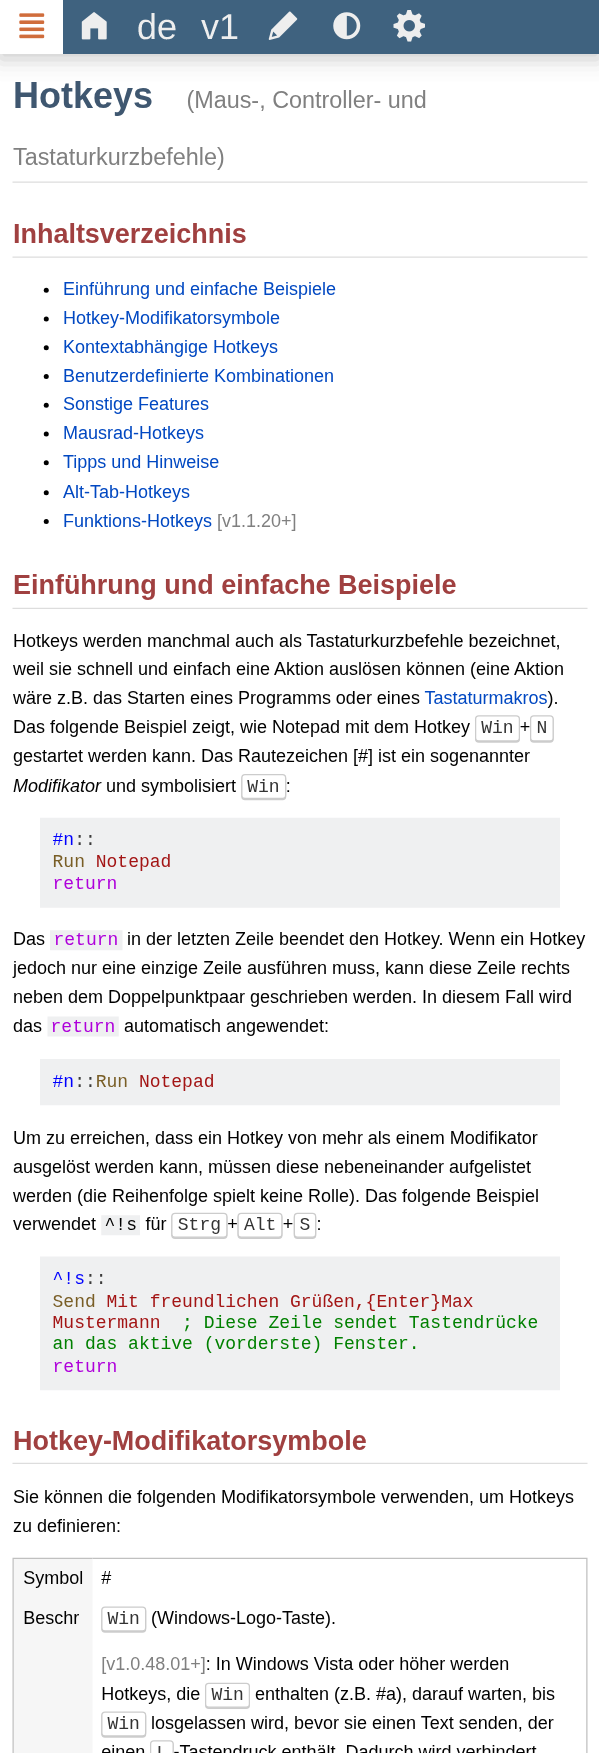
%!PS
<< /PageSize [599 1753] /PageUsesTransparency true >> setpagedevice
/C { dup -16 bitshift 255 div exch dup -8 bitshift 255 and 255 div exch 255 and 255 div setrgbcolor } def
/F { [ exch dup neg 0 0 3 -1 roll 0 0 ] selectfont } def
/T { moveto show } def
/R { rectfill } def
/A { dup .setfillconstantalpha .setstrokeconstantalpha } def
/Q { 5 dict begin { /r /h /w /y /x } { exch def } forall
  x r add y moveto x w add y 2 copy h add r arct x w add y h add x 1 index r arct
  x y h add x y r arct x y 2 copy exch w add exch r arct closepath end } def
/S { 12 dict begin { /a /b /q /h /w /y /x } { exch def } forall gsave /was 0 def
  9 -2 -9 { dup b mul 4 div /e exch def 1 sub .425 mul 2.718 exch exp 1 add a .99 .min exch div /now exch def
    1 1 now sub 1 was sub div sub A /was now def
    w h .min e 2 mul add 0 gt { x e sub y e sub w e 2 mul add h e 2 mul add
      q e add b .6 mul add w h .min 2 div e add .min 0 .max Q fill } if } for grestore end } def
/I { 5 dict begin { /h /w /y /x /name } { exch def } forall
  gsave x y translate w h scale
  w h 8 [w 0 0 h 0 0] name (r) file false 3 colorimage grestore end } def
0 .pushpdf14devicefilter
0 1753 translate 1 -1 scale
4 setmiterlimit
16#FFFFFF C
0 0 599 1753 R
(6.rgb) 12 81 576 1672 I
16#000000 C
0 5 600 54 0 10 .2 S
16#3F627F C
63 0 536 54 R
16#FFFFFF C
0 0 63 54 R
(1.rgb) 19 13 26 26 I
(2.rgb) 81 12 26 28 I
/LiberationSans-Regular 36 F
16#EEEEEE C
(de) 137 39 T
(v1) 201 39 T
(3.rgb) 268 11 30 29 I
(4.rgb) 333 12 28 28 I
(5.rgb) 393 10 32 32 I
.poppdf14devicefilter showpage
